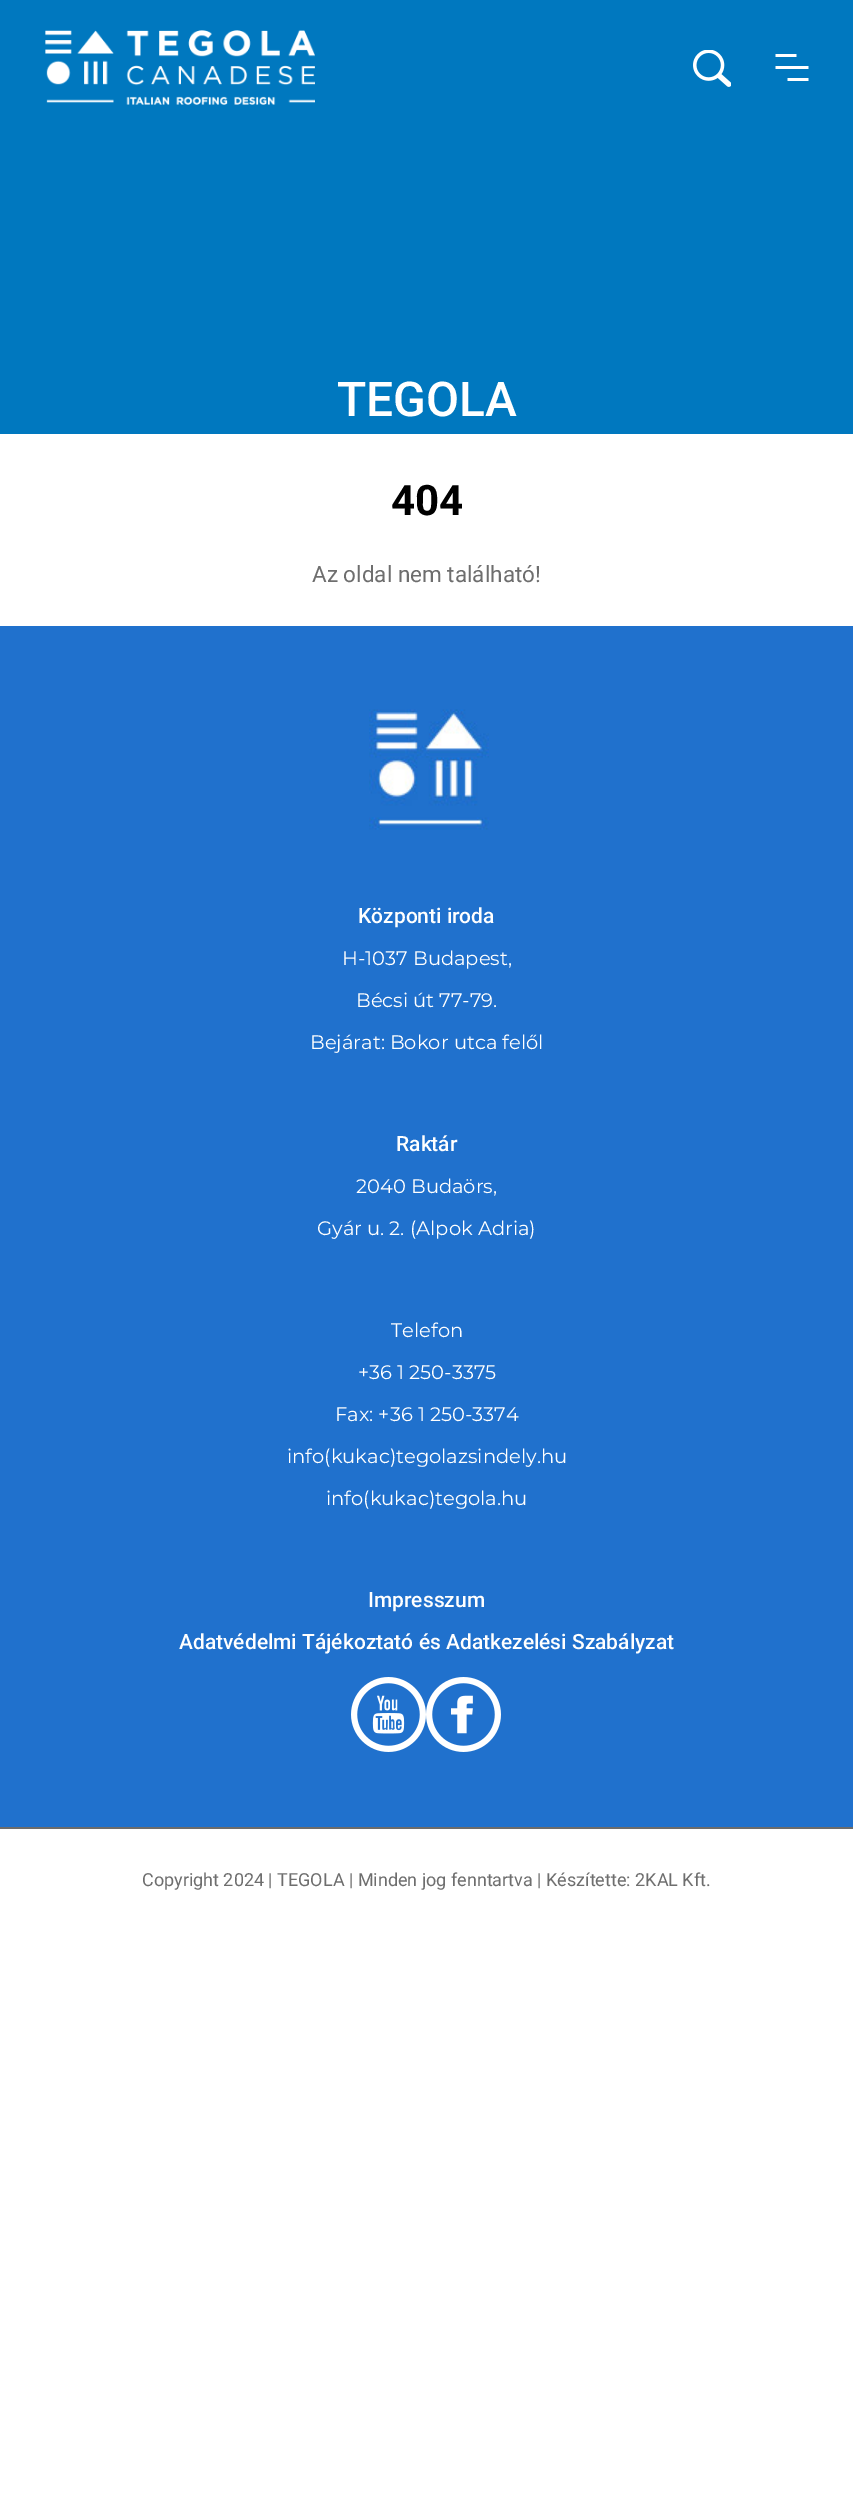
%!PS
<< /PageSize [853 2504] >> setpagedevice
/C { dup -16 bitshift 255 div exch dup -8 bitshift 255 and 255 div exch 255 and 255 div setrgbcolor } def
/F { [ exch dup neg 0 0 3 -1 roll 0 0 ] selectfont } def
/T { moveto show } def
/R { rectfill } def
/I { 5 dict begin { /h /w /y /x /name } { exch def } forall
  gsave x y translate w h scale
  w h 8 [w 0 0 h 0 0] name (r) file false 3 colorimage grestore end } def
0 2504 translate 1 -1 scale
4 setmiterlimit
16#FFFFFF C
0 0 853 2504 R
16#0078BF C
0 0 853 434 R
(1.rgb) 45 30 270 75 I
(2.rgb) 693 50 38 37 I
(3.rgb) 775 54 34 27 I
/Roboto-Medium 48 F
16#FFFFFF C
(TEGOLA) 337 416 T
/Roboto-Bold 42 F
16#000000 C
(404) 391 515 T
/Roboto-Regular 22.5 F
16#6E6E6E C
(Az oldal nem található!) 312 582 T
16#2071CD C
0 626 853 1201 R
(4.rgb) 369 709 120 121 I
/Roboto-Medium 21 F
16#FFFFFF C
(Központi iroda) 358 923 T
/Montserrat-Regular 19.5 F
(H-1037 Budapest,) 342 965 T
(Bécsi út 77-79.) 356 1007 T
(Bejárat: Bokor utca felől) 310 1049 T
/Roboto-Medium 21 F
(Raktár) 396 1151 T
/Montserrat-Regular 19.5 F
(2040 Budaörs,) 356 1193 T
(Gyár u. 2. \(Alpok Adria\)) 317 1235 T
(Telefon) 391 1337 T
(+36 1 250-3375) 358 1379 T
(Fax: +36 1 250-3374) 335 1421 T
(info\(kukac\)tegolazsindely.hu) 287 1463 T
(info\(kukac\)tegola.hu) 326 1505 T
/Roboto-Medium 21 F
(Impresszum) 368 1607 T
(Adatvédelmi Tájékoztató és Adatkezelési Szabályzat) 179 1649 T
(5.rgb) 351 1677 75 75 I
(6.rgb) 426 1677 75 75 I
16#6C6C6C C
0 1827 853 2 R
/Roboto-Regular 18 F
16#6E6E6E C
(Copyright 2024 | TEGOLA | Minden jog fenntartva | Készítette: 2KAL Kft.) 142 1886 T
showpage
